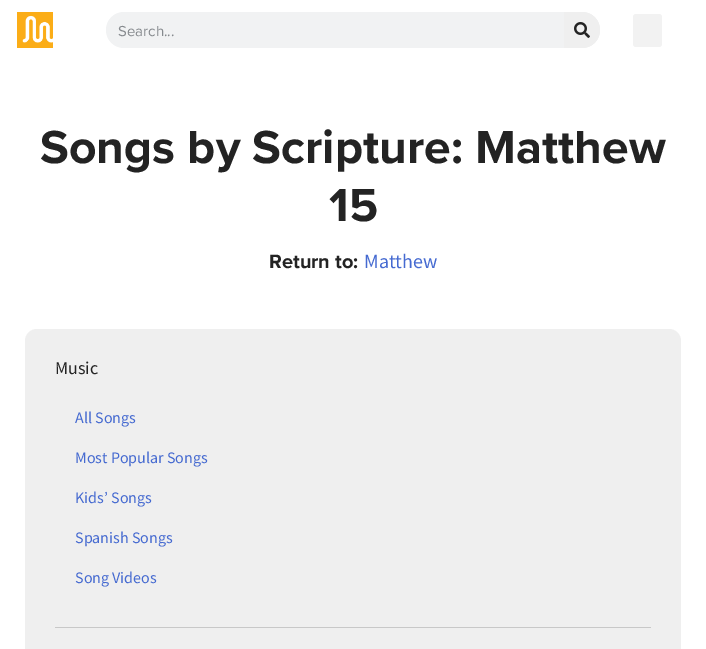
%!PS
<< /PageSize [706 649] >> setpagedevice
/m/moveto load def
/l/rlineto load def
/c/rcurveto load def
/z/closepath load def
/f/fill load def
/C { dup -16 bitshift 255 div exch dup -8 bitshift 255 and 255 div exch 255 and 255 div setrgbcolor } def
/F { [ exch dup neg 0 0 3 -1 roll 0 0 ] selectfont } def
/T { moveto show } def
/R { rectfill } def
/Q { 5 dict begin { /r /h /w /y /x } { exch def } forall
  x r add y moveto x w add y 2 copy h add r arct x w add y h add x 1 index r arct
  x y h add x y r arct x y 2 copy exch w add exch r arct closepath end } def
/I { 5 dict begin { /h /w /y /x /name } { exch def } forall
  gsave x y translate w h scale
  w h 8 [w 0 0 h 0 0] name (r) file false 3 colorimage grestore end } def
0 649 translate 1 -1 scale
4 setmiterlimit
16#FFFFFF C
0 0 706 649 R
(1.rgb) 17 12 36 36 I
16#F1F2F3 C
106 12 494 36 18 Q f
/ProximaNova-Regular 15 F
16#868A8E C
(Search...) 118 36 T
16#EFEFEF C
564 12 m 18 0 l 10 0 18 8 18 18 c 0 10 -8 18 -18 18 c -18 0 l z f
(2.rgb) 574 22 16 16 I
16#F2F2F2 C
633 14 29 33 3 Q f
/ProximaNova-Bold 48 F
16#232323 C
(Songs by Scripture: Matthew) 40 163 T
(15) 329 221 T
/ProximaNova-Bold 20 F
(Return to:) 269 268 T
/SourceSansPro-Regular 20 F
16#456AD1 C
(Matthew) 364 268 T
16#EFEFEF C
25 329 656 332 12 Q f
/SourceSansPro-Regular 18 F
16#232323 C
(Music) 55 374 T
/SourceSansPro-Regular 16 F
16#456AD1 C
(All Songs) 75 423 T
(Most Popular Songs) 75 463 T
(Kids’ Songs) 75 503 T
(Spanish Songs) 75 543 T
(Song Videos) 75 583 T
16#C8C8C8 C
55 627 596 1 R
showpage
